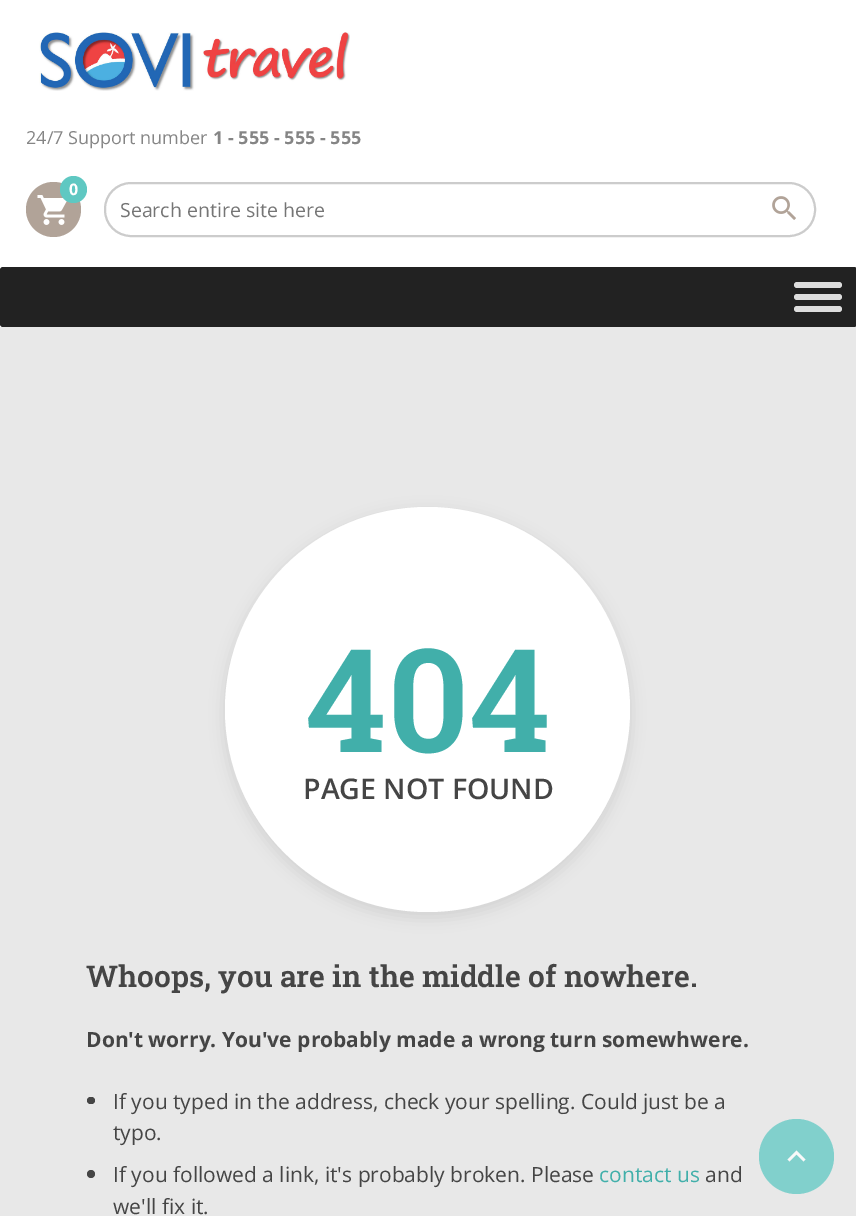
%!PS
<< /PageSize [856 1216] /PageUsesTransparency true >> setpagedevice
/m/moveto load def
/l/rlineto load def
/z/closepath load def
/f/fill load def
/s/stroke load def
/w/setlinewidth load def
/C { dup -16 bitshift 255 div exch dup -8 bitshift 255 and 255 div exch 255 and 255 div setrgbcolor } def
/F { [ exch dup neg 0 0 3 -1 roll 0 0 ] selectfont } def
/T { moveto show } def
/R { rectfill } def
/A { dup .setfillconstantalpha .setstrokeconstantalpha } def
/O { newpath 0 360 arc closepath } def
/Q { 5 dict begin { /r /h /w /y /x } { exch def } forall
  x r add y moveto x w add y 2 copy h add r arct x w add y h add x 1 index r arct
  x y h add x y r arct x y 2 copy exch w add exch r arct closepath end } def
/S { 12 dict begin { /a /b /q /h /w /y /x } { exch def } forall gsave /was 0 def
  9 -2 -9 { dup b mul 4 div /e exch def 1 sub .425 mul 2.718 exch exp 1 add a .99 .min exch div /now exch def
    1 1 now sub 1 was sub div sub A /was now def
    w h .min e 2 mul add 0 gt { x e sub y e sub w e 2 mul add h e 2 mul add
      q e add b .6 mul add w h .min 2 div e add .min 0 .max Q fill } if } for grestore end } def
/I { 5 dict begin { /h /w /y /x /name } { exch def } forall
  gsave x y translate w h scale
  w h 8 [w 0 0 h 0 0] name (r) file false 3 colorimage grestore end } def
0 .pushpdf14devicefilter
0 1216 translate 1 -1 scale
4 setmiterlimit
16#E8E8E8 C
0 0 856 1216 R
16#FFFFFF C
0 0 856 327 R
(1.rgb) 39 32 311 59 I
/OpenSans-Regular 18 F
16#858585 C
(24/7 Support number) 26 144 T
/OpenSans-Bold 18 F
(1 - 555 - 555 - 555) 213 144 T
16#B1A398 C
53.5 209.5 27.5 O f
(2.rgb) 37 195 30 30 I
16#5FC8C2 C
73.5 189.5 13.5 O f
/OpenSans-Bold 16 F
16#FFFFFF C
(0) 69 195 T
16#CCCCCC C
2 w
105 183 710 53 26 Q s
/OpenSans-Regular 19.5 F
16#757575 C
(Search entire site here) 120 217 T
(3.rgb) 772 196 24 24 I
16#222222 C
0 267 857 60 3 Q f
16#DDDDDD C
794 282 48 6 3 Q f
794 294 48 6 3 Q f
794 306 48 6 3 Q f
16#000000 C
225 512 405 405 202.5 7.5 .1 S
16#FFFFFF C
427.5 709.5 202.5 O f
/RobotoSlab-SemiBold 144 F
16#41AFAA C
(404) 305 752 T
/OpenSans-SemiBold 28.5 F
16#454545 C
(PAGE NOT FOUND) 303 799 T
/RobotoSlab-SemiBold 30 F
(Whoops, you are in the middle of nowhere.) 86 987 T
/OpenSans-Bold 21 F
(Don't worry. You've probably made a wrong turn somewhwere.) 86 1047 T
87 1097 8 7 3.5 Q f
/OpenSans-Regular 21 F
(If you typed in the address, check your spelling. Could just be a) 113 1109 T
(typo.) 113 1140 T
91 1174 4 O f
(If you followed a link, it's probably broken. Please) 113 1182 T
16#41AFAA C
(contact us) 599 1182 T
16#454545 C
(and) 705 1182 T
(we'll fix it.) 113 1214 T
16#81D0CC C
796.5 1156.5 37.5 O f
16#F9F9F9 C
789.5 1161.5 m -2 -2 l 9 -9 l 9 9 l -2 2 l -7 -7 l z f
.poppdf14devicefilter showpage
